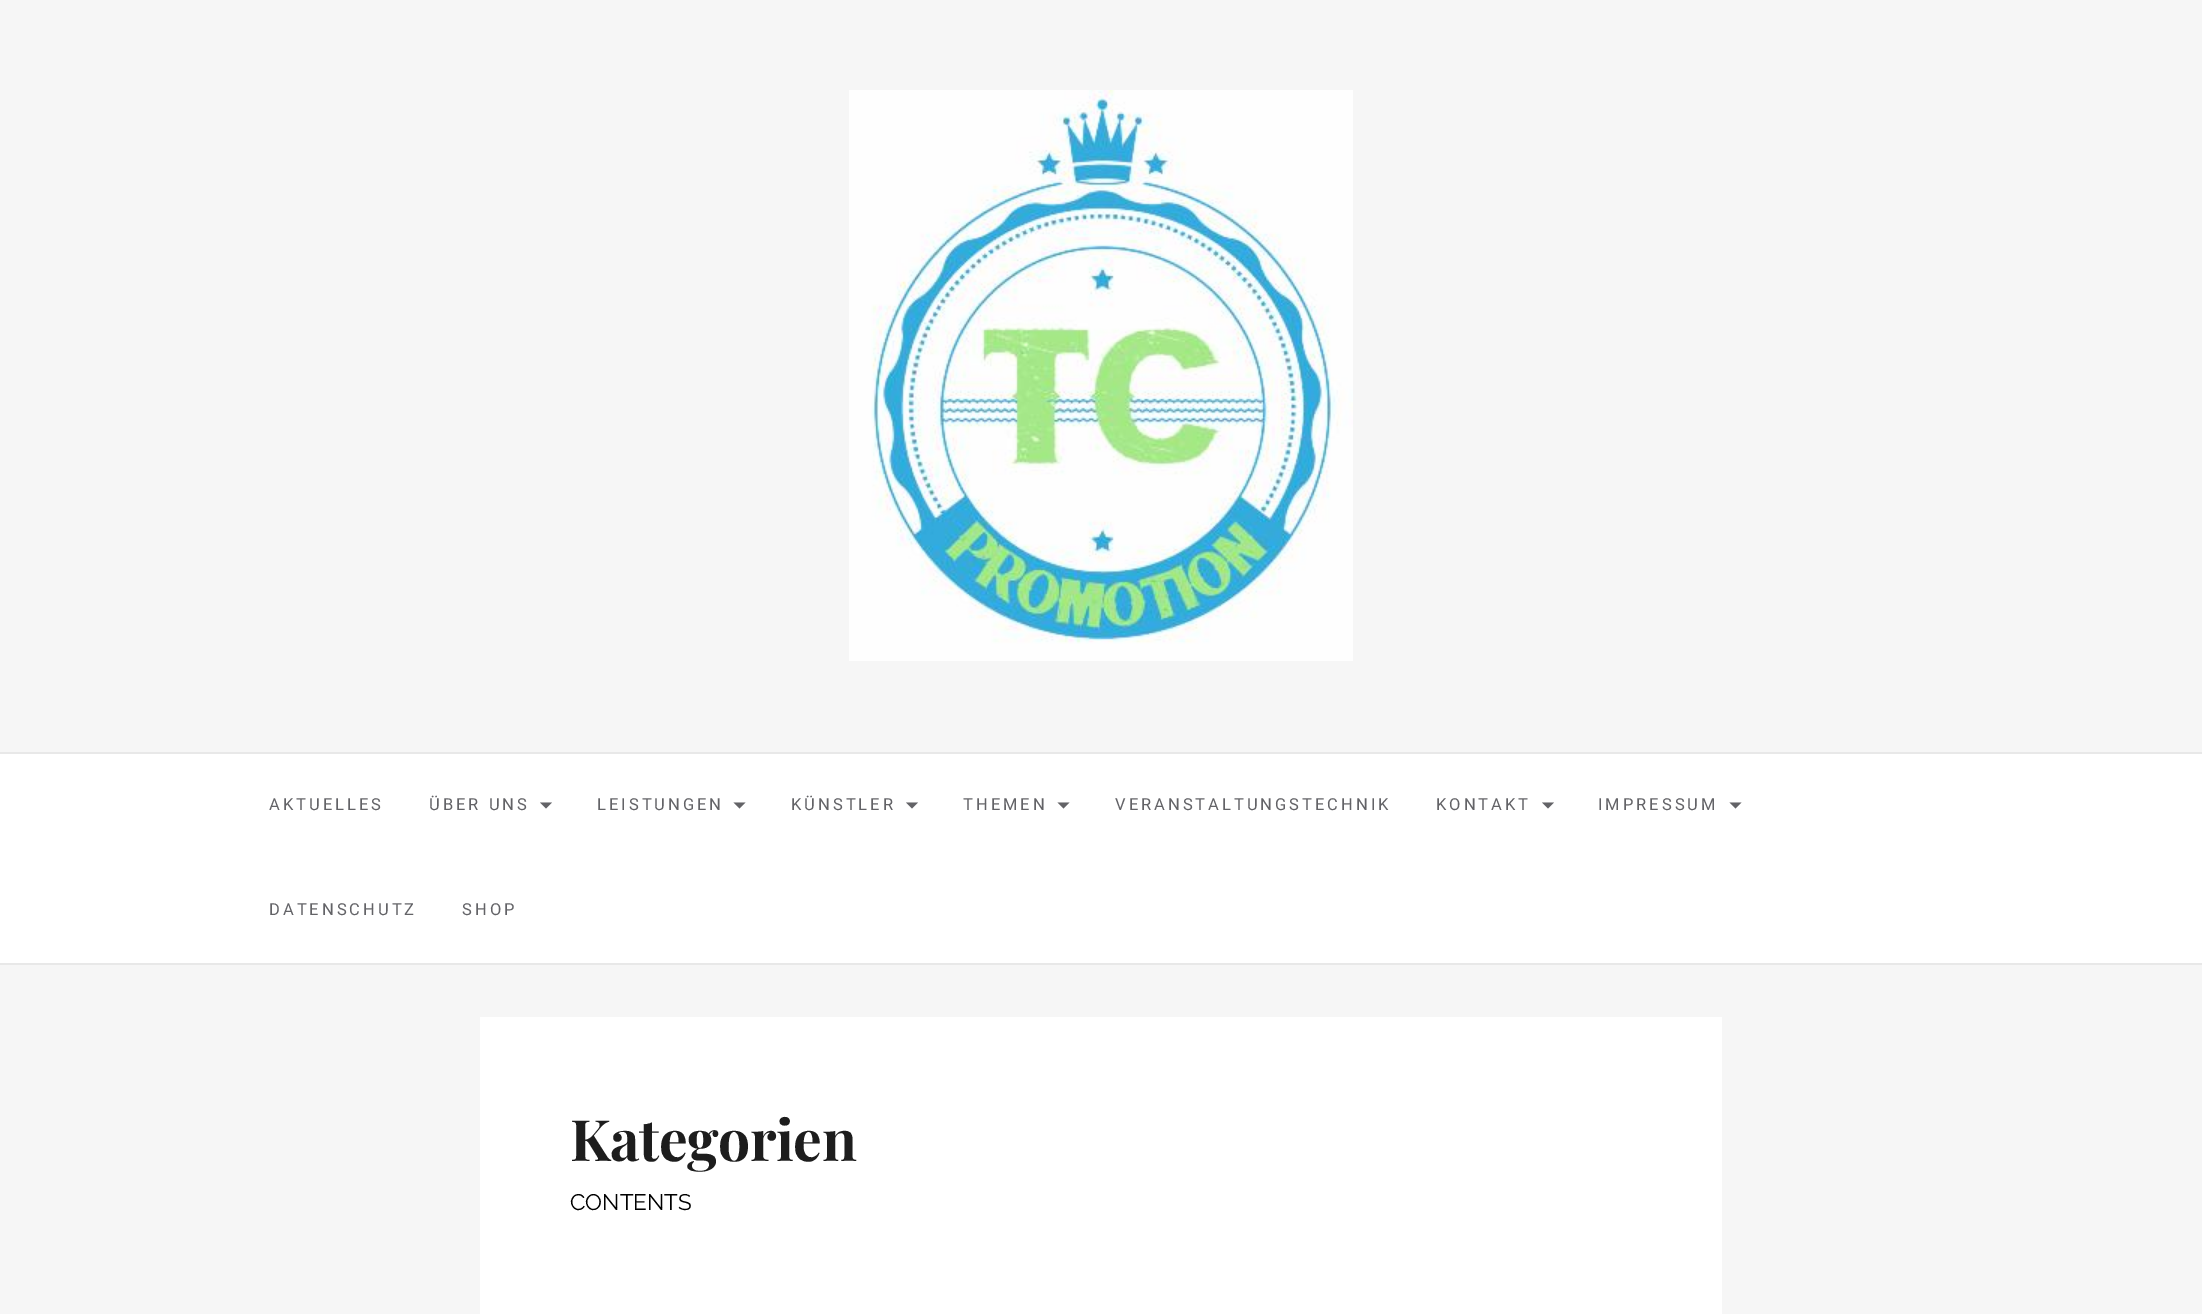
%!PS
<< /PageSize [2202 1314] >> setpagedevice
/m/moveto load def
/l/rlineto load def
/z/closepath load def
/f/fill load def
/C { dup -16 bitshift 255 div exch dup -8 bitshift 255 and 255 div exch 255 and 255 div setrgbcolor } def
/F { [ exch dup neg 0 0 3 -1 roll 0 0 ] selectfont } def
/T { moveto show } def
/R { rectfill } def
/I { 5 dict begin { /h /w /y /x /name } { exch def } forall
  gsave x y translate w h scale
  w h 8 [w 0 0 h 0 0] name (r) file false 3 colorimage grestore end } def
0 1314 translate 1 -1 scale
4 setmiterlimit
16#F6F6F6 C
0 0 2202 1314 R
(1.rgb) 849 90 504 571 I
16#FFFFFF C
0 754 2202 209 R
16#E8E8E8 C
0 752 2202 2 R
0 963 2202 2 R
/Roboto-Regular 16.5 F
16#636367 C
269 810 m 3 0 (AKTUELLES) ashow
429 810 m 3 0 (ÜBER UNS) ashow
540 802.5 m 12 0 l -6 6 l z f
597 810 m 3 0 (LEISTUNGEN) ashow
733.5 802.5 m 12 0 l -6 6 l z f
791 810 m 3 0 (KÜNSTLER) ashow
906 802.5 m 12 0 l -6 6 l z f
963 810 m 3 0 (THEMEN) ashow
1057.5 802.5 m 12 0 l -6 6 l z f
1115 810 m 3 0 (VERANSTALTUNGSTECHNIK) ashow
1436 810 m 3 0 (KONTAKT) ashow
1542 802.5 m 12 0 l -6 6 l z f
1598 810 m 3 0 (IMPRESSUM) ashow
1729.5 802.5 m 12 0 l -6 6 l z f
269 915 m 3 0 (DATENSCHUTZ) ashow
462 915 m 3 0 (SHOP) ashow
16#FFFFFF C
480 1017 1242 297 R
/PlayfairDisplay-Bold 57 F
16#1D1D1D C
570 1161 m -.5 0 (Kategorien) ashow
/Raleway-Regular 22.5 F
16#000000 C
(CONTENTS) 570 1210 T
showpage
